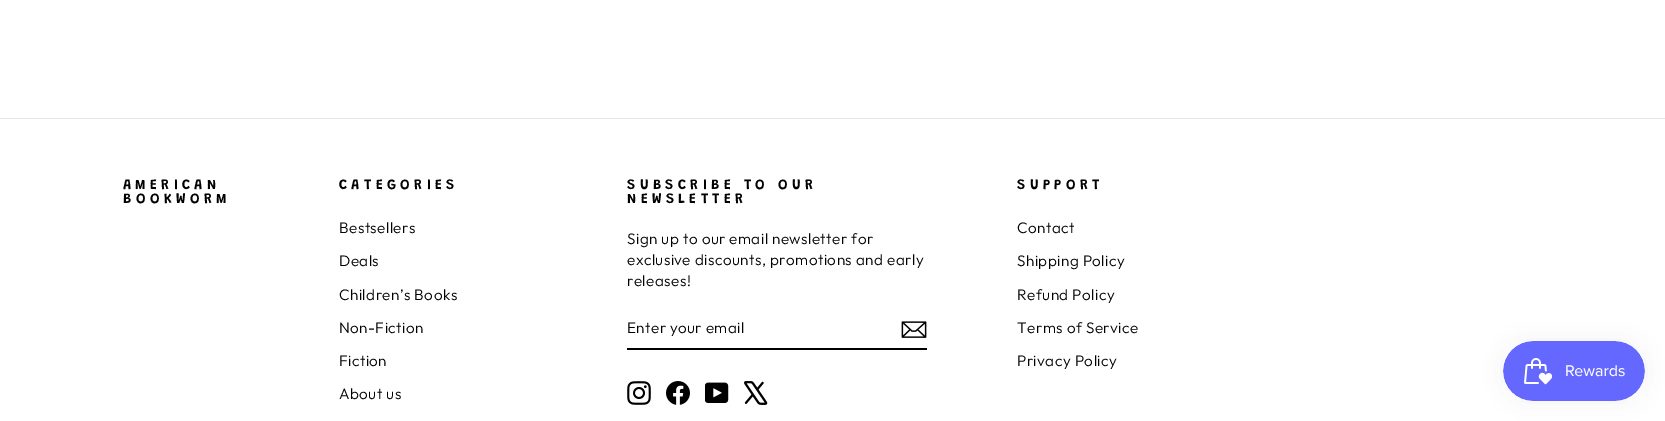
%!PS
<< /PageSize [1665 421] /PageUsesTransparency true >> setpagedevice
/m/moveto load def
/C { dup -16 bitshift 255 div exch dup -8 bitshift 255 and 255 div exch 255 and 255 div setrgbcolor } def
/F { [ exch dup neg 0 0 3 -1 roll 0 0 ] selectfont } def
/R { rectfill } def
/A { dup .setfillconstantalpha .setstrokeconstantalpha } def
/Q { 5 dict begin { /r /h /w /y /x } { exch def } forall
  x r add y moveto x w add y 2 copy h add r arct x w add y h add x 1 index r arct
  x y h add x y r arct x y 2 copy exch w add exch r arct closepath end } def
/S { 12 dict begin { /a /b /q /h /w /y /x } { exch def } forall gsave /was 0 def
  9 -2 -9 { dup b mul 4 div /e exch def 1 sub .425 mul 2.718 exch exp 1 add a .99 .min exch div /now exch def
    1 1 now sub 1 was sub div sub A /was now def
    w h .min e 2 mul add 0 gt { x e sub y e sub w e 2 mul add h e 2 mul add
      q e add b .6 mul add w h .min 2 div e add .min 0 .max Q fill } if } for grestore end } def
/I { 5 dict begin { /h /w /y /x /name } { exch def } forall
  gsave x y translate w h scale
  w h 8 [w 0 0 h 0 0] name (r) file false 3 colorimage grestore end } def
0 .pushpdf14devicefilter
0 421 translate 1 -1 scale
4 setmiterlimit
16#FFFFFF C
0 0 1665 421 R
16#E8E8E1 C
0 118 1665 1 R
/Grandstander-SemiBold 14.4 F
16#000000 C
123 189 m 4.3 0 (AMERICAN) ashow
123 203 m 4.3 0 (BOOKWORM) ashow
339 189 m 4.3 0 (CATEGORIES) ashow
/Outfit-Light 15.25 F
339 233 m .45 0 (Bestsellers) ashow
339 266 m .45 0 (Deals) ashow
339 300 m .45 0 (Children’s Books) ashow
339 333 m .45 0 (Non-Fiction) ashow
339 366 m .45 0 (Fiction) ashow
339 399 m .45 0 (About us) ashow
/Grandstander-SemiBold 14.4 F
627 189 m 4.3 0 (SUBSCRIBE TO OUR) ashow
627 203 m 4.3 0 (NEWSLETTER) ashow
/Outfit-Light 15.25 F
627 244 m .45 0 (Sign up to our email newsletter for) ashow
627 265 m .45 0 (exclusive discounts, promotions and early) ashow
627 286 m .45 0 (releases!) ashow
627 348 300 2 R
627 333 m .4 0 (Enter your email) ashow
(1.rgb) 901 321 26 17 I
(2.rgb) 627 381 24 24 I
(3.rgb) 666 381 24 24 I
(4.rgb) 705 382 24 21 I
(5.rgb) 744 381 24 24 I
/Grandstander-SemiBold 14.4 F
1017 189 m 4.3 0 (SUPPORT) ashow
/Outfit-Light 15.25 F
1017 233 m .45 0 (Contact) ashow
1017 266 m .45 0 (Shipping Policy) ashow
1017 300 m .45 0 (Refund Policy) ashow
1017 333 m .45 0 (Terms of Service) ashow
1017 366 m .45 0 (Privacy Policy) ashow
1503 341 142 60 30 12.5 .05 S
(6.rgb) 1503 341 142 60 I
.poppdf14devicefilter showpage
